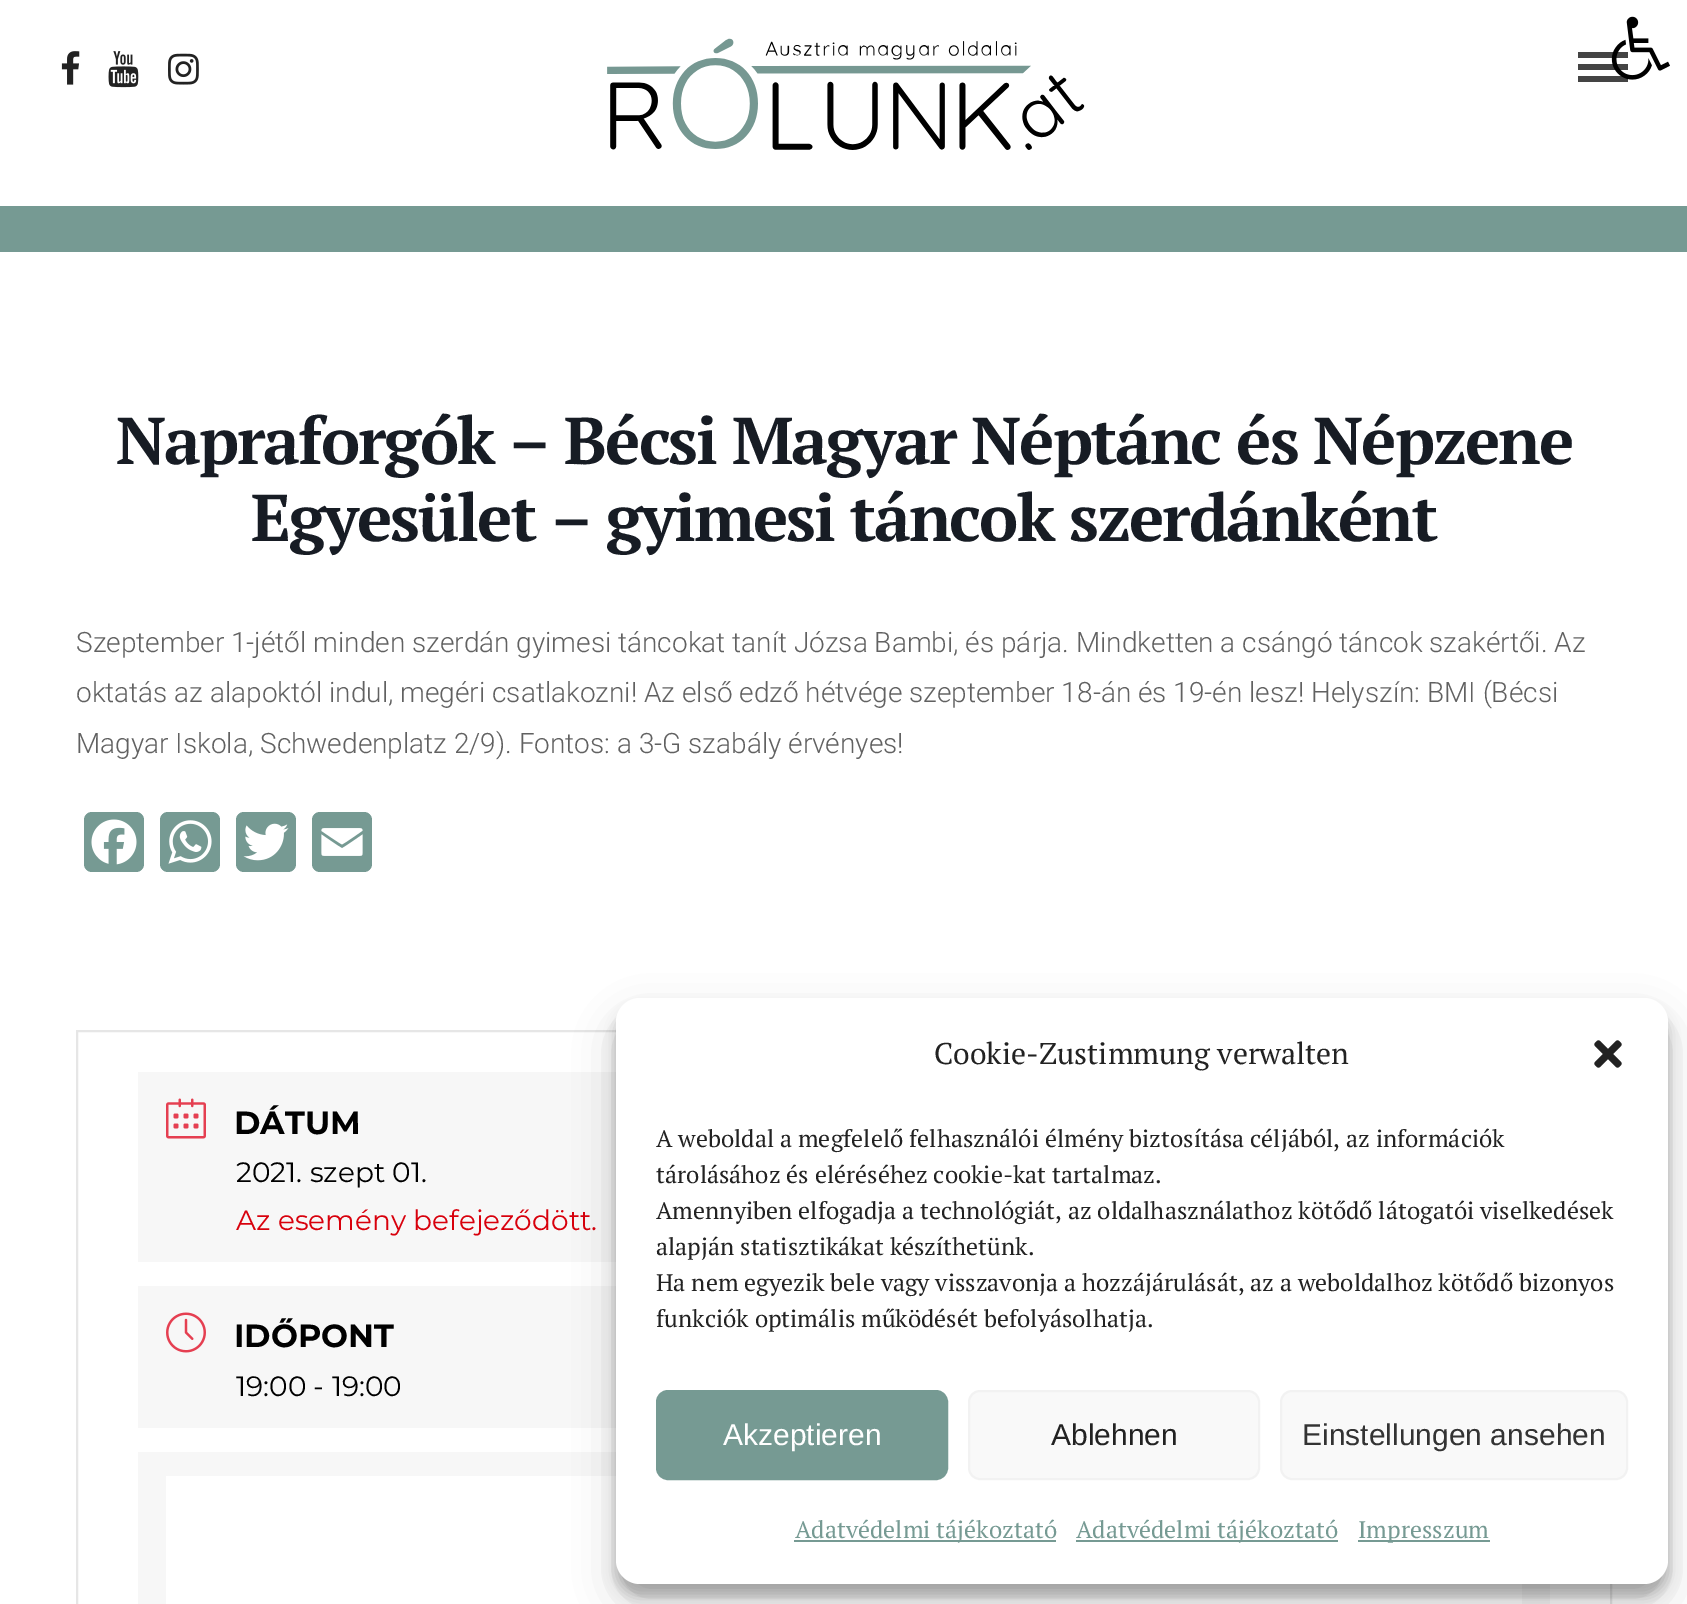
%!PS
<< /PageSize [1687 1604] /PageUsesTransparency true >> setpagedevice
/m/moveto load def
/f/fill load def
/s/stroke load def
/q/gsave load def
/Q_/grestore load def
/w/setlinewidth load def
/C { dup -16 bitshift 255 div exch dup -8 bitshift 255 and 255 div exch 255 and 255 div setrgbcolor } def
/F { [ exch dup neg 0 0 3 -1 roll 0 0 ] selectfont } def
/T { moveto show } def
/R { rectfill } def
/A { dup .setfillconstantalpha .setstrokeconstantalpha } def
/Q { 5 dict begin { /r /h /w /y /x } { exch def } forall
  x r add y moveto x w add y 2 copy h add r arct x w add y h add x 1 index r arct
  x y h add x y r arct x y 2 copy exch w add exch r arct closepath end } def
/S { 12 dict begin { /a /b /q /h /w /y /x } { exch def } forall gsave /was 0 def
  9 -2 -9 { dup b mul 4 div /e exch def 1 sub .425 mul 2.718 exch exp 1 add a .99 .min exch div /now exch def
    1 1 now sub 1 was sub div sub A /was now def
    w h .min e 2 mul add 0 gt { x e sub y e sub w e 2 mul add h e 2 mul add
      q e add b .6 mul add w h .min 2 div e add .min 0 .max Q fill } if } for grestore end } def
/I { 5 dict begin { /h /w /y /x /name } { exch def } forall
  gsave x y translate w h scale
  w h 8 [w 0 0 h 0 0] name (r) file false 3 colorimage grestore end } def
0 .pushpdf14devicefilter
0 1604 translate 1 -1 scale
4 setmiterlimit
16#FFFFFF C
0 0 1687 1604 R
16#444444 C
1578 52 50 6 R
1578 64 50 6 R
1578 76 50 6 R
(1.rgb) 1611 16 59 64 I
16#769A93 C
0 206 1687 46 R
(2.rgb) 61 51 19 34 I
(3.rgb) 108 51 31 37 I
(4.rgb) 168 53 31 32 I
(5.rgb) 607 38 478 112 I
/PTSerif-Bold 66 F
16#171C24 C
116 464 m -2 0 (Napraforgók – Bécsi Magyar Néptánc és Népzene) ashow
251 541 m -2 0 (Egyesület – gyimesi táncok szerdánként) ashow
/Roboto-Light 28 F
16#616161 C
(Szeptember 1-jétől minden szerdán gyimesi táncokat tanít Józsa Bambi, és párja. Mindketten a csángó táncok szakértői. Az) 76 652 T
(oktatás az alapoktól indul, megéri csatlakozni! Az első edző hétvége szeptember 18-án és 19-én lesz! Helyszín: BMI \(Bécsi) 76 702 T
(Magyar Iskola, Schwedenplatz 2/9\). Fontos: a 3-G szabály érvényes!) 76 753 T
16#769A93 C
84 812 60 60 8 Q f
(6.rgb) 91 819 46 46 I
160 812 60 60 8 Q f
(7.rgb) 168 820 44 44 I
236 812 60 60 8 Q f
(8.rgb) 243 823 46 38 I
312 812 60 60 8 Q f
(9.rgb) 321 828 42 28 I
16#E6E6E6 C
2 w
77 1031 1534 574 rectstroke
16#F7F7F7 C
138 1072 478 190 R
(10.rgb) 166 1098 40 41 I
/Montserrat-Bold 32 F
16#000000 C
(DÁTUM) 234 1134 T
/Montserrat-Regular 28 F
(2021. szept 01.) 236 1182 T
16#D8000C C
(Az esemény befejeződött.) 236 1230 T
16#F7F7F7 C
138 1286 478 142 R
(11.rgb) 166 1312 40 41 I
/Montserrat-Bold 32 F
16#000000 C
(IDŐPONT) 234 1347 T
/Montserrat-Regular 28 F
(19:00 - 19:00) 236 1396 T
16#F7F7F7 C
138 1452 1412 152 R
16#FFFFFF C
166 1476 1356 128 R
16#000000 C
616 1010 1052 586 24 6 .23 S
616 1018 1052 586 24 20 .19 S
16#FFFFFF C
616 998 1052 586 24 Q f
/PTSerif-Regular 30 F
16#222222 C
(Cookie-Zustimmung verwalten) 934 1064 T
(12.rgb) 1594 1040 28 28 I
/PTSerif-Regular 24 F
(A weboldal a megfelelő felhasználói élmény biztosítása céljából, az információk) 656 1147 T
(tárolásához és eléréséhez cookie-kat tartalmaz.) 656 1183 T
(Amennyiben elfogadja a technológiát, az oldalhasználathoz kötődő látogatói viselkedések) 656 1219 T
(alapján statisztikákat készíthetünk.) 656 1255 T
(Ha nem egyezik bele vagy visszavonja a hozzájárulását, az a weboldalhoz kötődő bizonyos) 656 1291 T
(funkciók optimális működését befolyásolhatja.) 656 1327 T
16#769A93 C
657 1391 290 88 11 Q q f Q_
s
/LiberationSans-Regular 30 F
16#FFFFFF C
(Akzeptieren) 723 1445 T
16#F9F9F9 C
969 1391 290 88 11 Q q f Q_
16#F2F2F2 C
s
16#222222 C
(Ablehnen) 1051 1445 T
16#F9F9F9 C
1281 1391 346 88 11 Q q f Q_
16#F2F2F2 C
s
16#333333 C
(Einstellungen ansehen) 1302 1445 T
16#769A93 C
794 1540 262 2 R
/PTSerif-Regular 24 F
(Adatvédelmi tájékoztató) 795 1538 T
1076 1540 262 2 R
(Adatvédelmi tájékoztató) 1076 1538 T
1358 1540 132 2 R
(Impresszum) 1358 1538 T
.poppdf14devicefilter showpage
